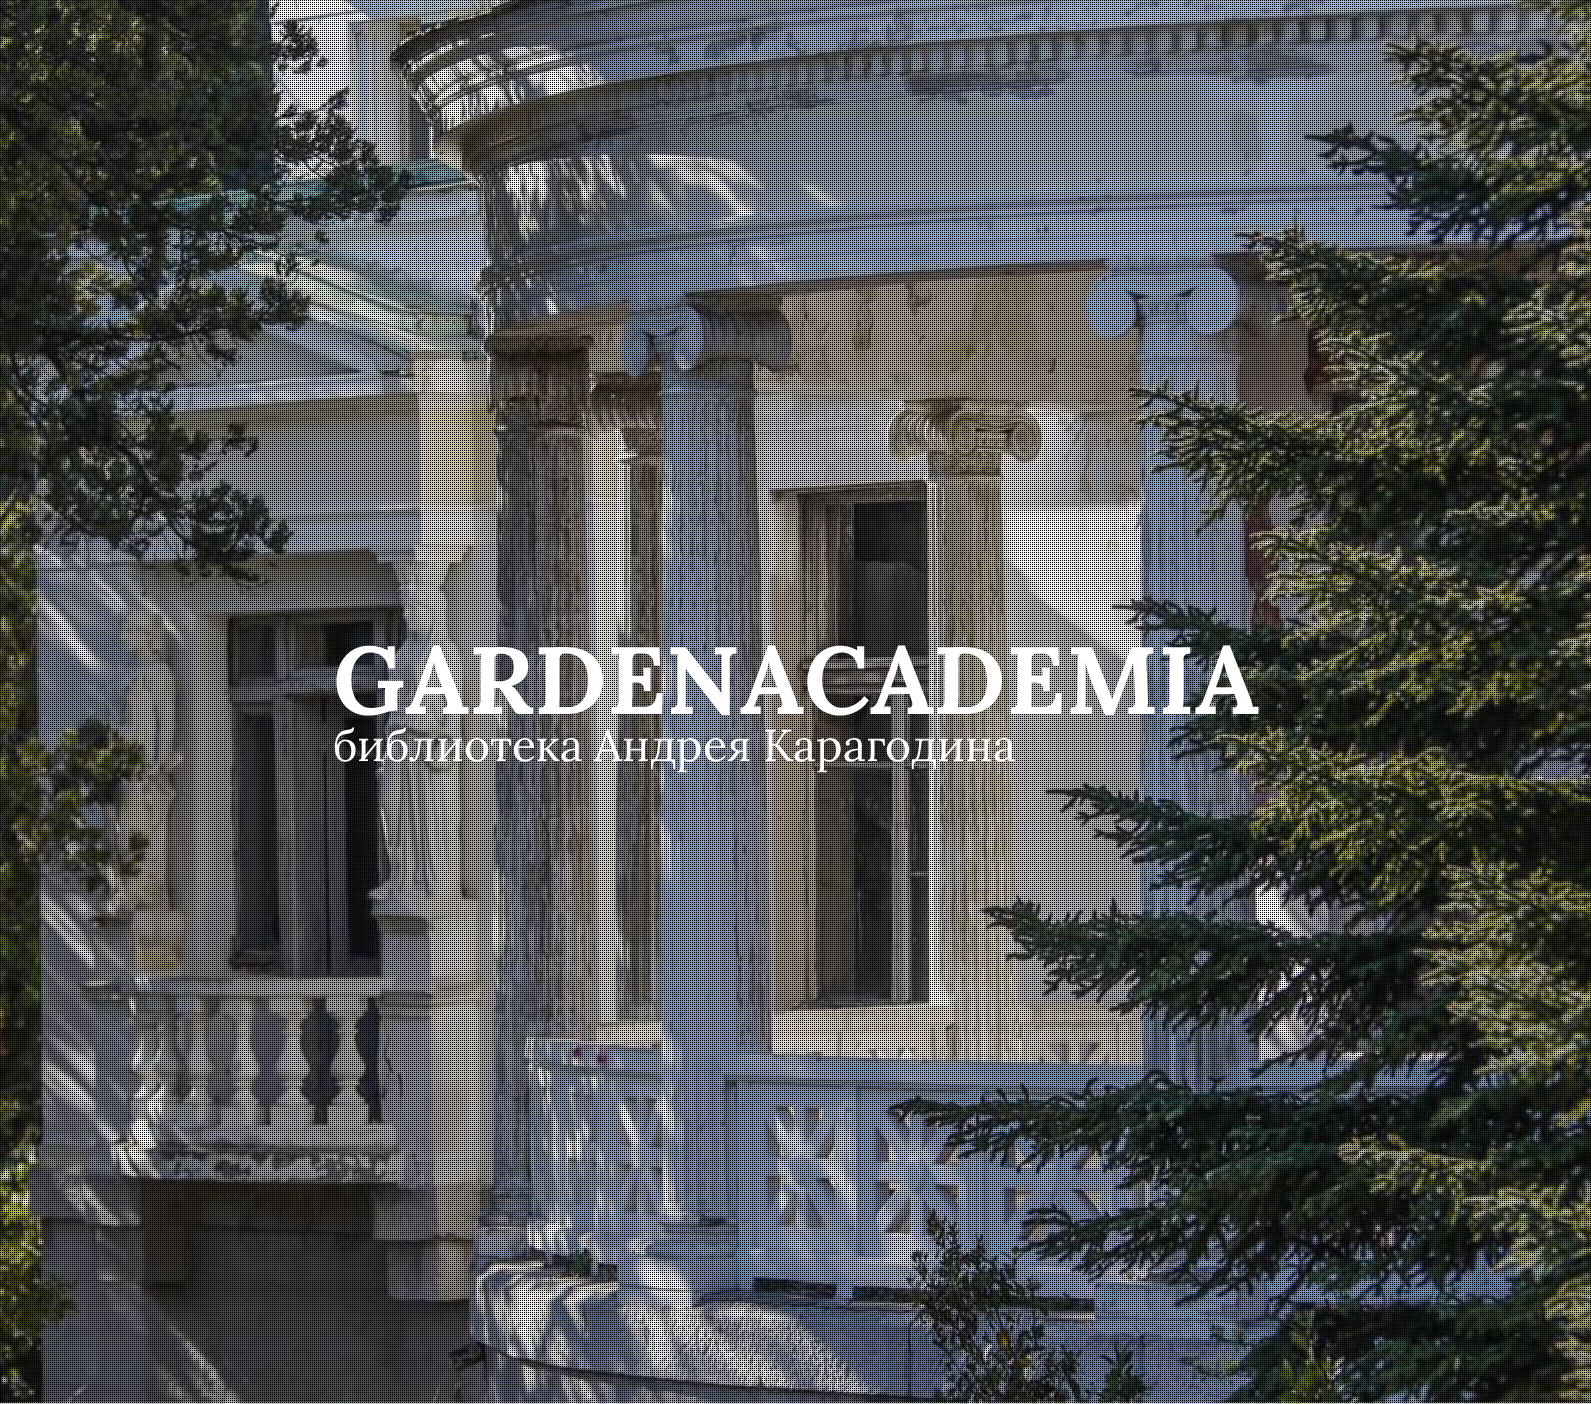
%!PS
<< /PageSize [1591 1404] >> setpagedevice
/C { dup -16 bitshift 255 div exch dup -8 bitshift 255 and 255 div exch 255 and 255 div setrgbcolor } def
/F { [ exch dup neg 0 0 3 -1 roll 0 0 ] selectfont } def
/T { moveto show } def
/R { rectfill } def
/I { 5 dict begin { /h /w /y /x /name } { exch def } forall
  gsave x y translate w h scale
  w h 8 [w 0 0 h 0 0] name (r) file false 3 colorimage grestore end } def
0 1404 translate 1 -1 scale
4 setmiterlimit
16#FFFFFF C
0 0 1591 1404 R
(1.rgb) 0 0 1591 1404 I
(2.rgb) 0 0 1591 1403 I
/Lora-Bold 95.5 F
(GARDENACADEMIA) 333 714 T
/Lora-Regular 44.5 F
(библиотека Андрея Карагодина) 333 761 T
showpage
